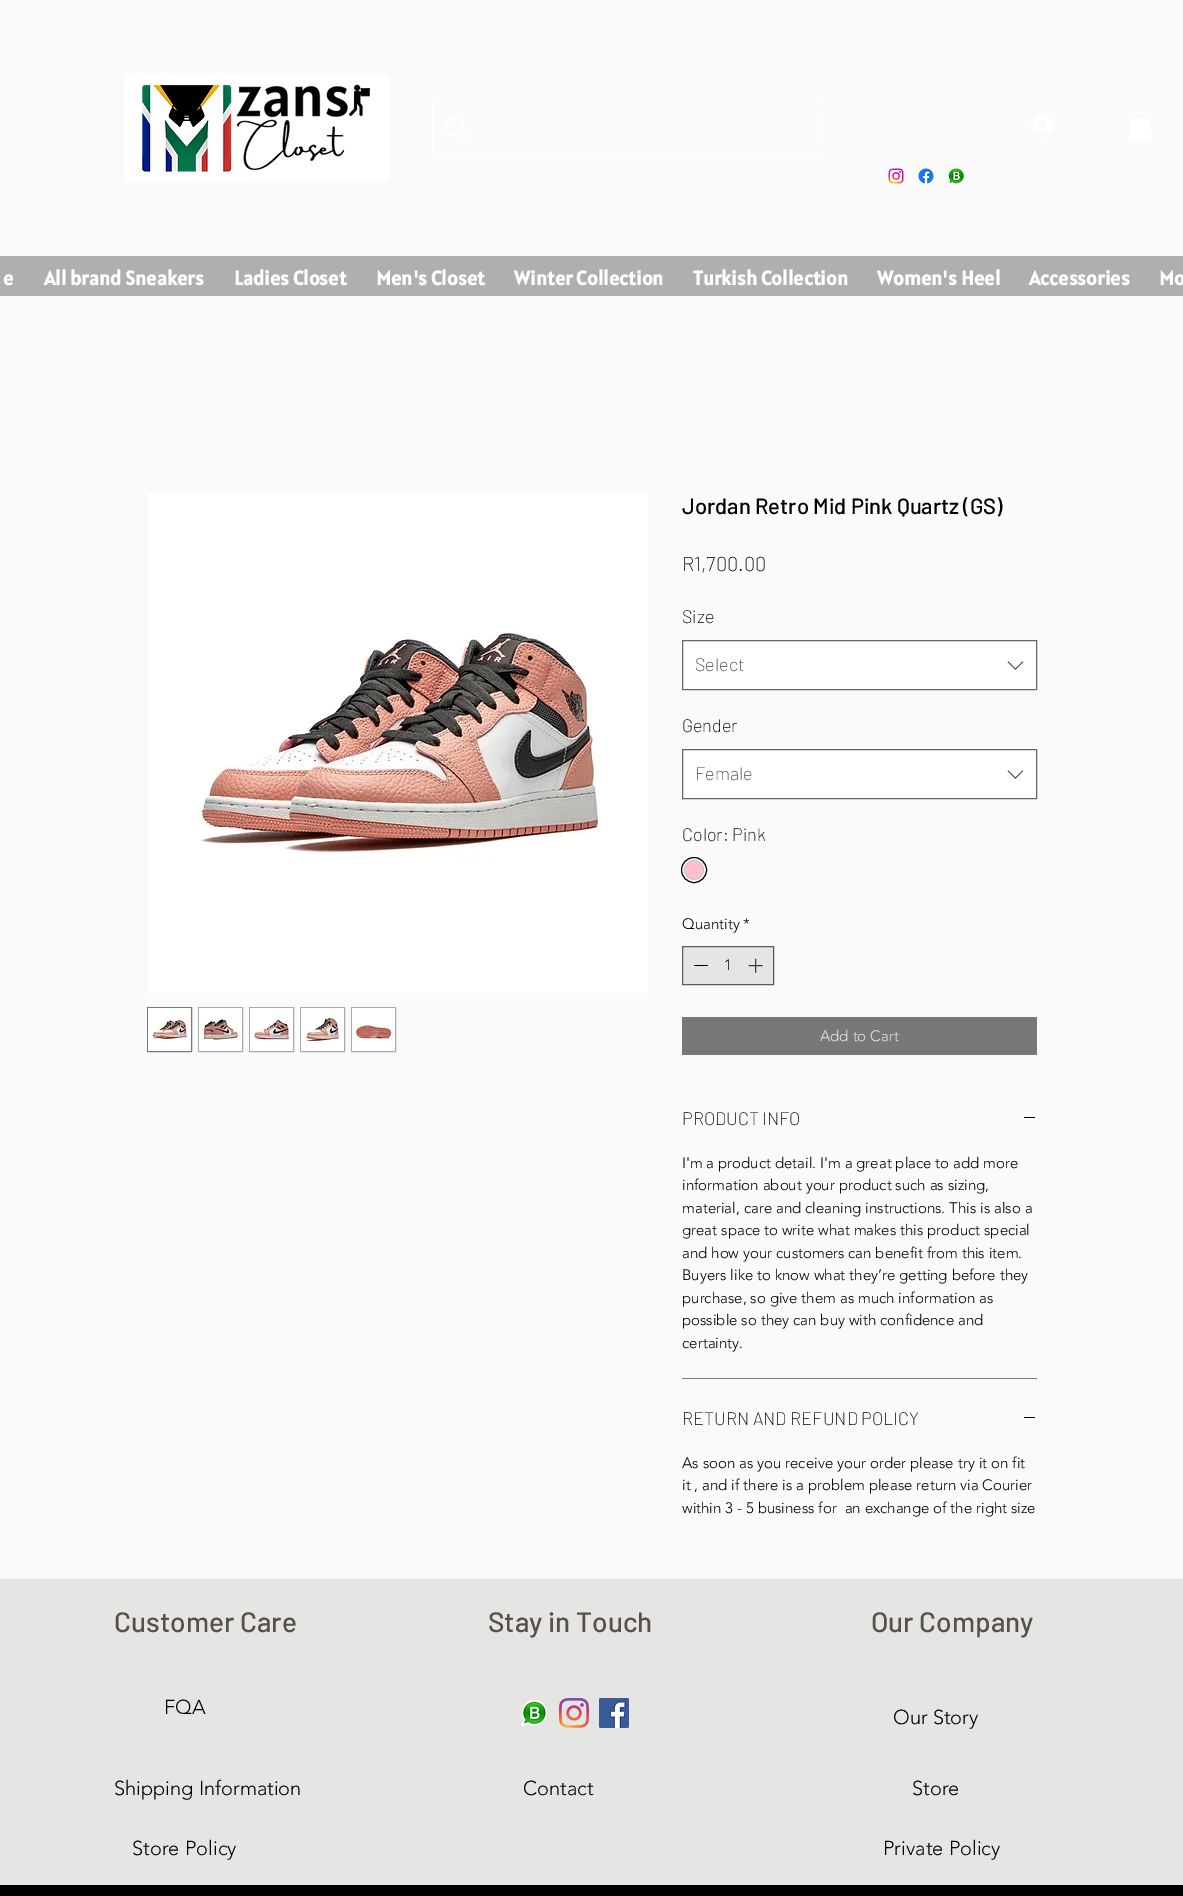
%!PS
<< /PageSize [1183 1896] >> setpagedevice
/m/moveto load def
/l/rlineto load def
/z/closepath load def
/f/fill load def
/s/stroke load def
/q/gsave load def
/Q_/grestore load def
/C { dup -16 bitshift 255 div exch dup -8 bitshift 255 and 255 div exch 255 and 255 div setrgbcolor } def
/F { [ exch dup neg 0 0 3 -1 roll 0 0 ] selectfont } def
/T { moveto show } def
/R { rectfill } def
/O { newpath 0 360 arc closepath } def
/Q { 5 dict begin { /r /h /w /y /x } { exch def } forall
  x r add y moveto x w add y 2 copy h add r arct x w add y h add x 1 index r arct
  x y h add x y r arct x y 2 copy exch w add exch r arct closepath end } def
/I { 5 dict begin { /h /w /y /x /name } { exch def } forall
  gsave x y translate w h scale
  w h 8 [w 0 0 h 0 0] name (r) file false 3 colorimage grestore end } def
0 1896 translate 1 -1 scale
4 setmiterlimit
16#FAFAFA C
0 0 1183 1896 R
16#FFFFFF C
124 73 266 110 10 Q f
(1.rgb) 140 84 231 90 I
432.5 102.5 389 52 5.5 Q s
(2.rgb) 445 117 22 22 I
(3.rgb) 1031 115 22 22 I
(4.rgb) 1129 112 23 30 I
(5.rgb) 888 168 16 16 I
(6.rgb) 918 168 16 16 I
(7.rgb) 947 166 19 19 I
16#AFAFAF C
0 256 1183 40 R
/Alatsi-Bold 20 F
16#FFFFFF C
(e) 3 285 T
(All brand Sneakers) 44 285 T
(Ladies Closet) 234 285 T
(Men's Closet) 376 285 T
(Winter Collection) 514 285 T
(Turkish Collection) 693 285 T
(Women's Heel) 877 285 T
(Accessories) 1029 285 T
(Mo) 1159 285 T
(8.rgb) 148 493 500 500 I
16#787878 C
147.5 1007.5 44 44 rectstroke
(9.rgb) 148 1008 43 43 I
16#ABABAB C
198.5 1007.5 44 44 rectstroke
(10.rgb) 199 1008 43 43 I
249.5 1007.5 44 44 rectstroke
(11.rgb) 250 1008 43 43 I
300.5 1007.5 44 44 rectstroke
(12.rgb) 301 1008 43 43 I
351.5 1007.5 44 44 rectstroke
(13.rgb) 352 1008 43 43 I
/Barlow-Medium 22 F
16#000000 C
(Jordan Retro Mid Pink Quartz \(GS\)) 682 514 T
/Barlow-ExtraLight 20 F
(R1,700.00) 682 571 T
/Barlow-ExtraLight 18 F
(Size) 682 623 T
16#FFFFFF C
682.5 640.5 m 354 0 l 0 49 l -354 0 l z q f Q_
16#666666 C
s
16#444444 C
(Select) 695 671 T
(14.rgb) 1007 661 17 9 I
16#000000 C
(Gender) 682 732 T
16#FFFFFF C
682.5 749.5 m 354 0 l 0 49 l -354 0 l z q f Q_
16#666666 C
s
16#444444 C
(Female) 695 780 T
(14.rgb) 1007 770 17 9 I
16#000000 C
(Color: Pink) 682 841 T
694 870 12.5 O s
16#FFC0CB C
694 870 9.5 O q f Q_
16#C9C9C9 C
s
/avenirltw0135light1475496-Light 15 F
16#000000 C
(Quantity *) 682 929 T
16#E5E5E4 C
682.5 946.5 m 91 0 l 0 38 l -91 0 l z q f Q_
16#5C5C5B C
s
16#000000 C
694 965 14 1 R
(1) 724 970 T
(15.rgb) 748 958 15 15 I
16#787878 C
682 1017 355 38 R
16#E5E5E4 C
(Add to Cart) 820 1041 T
16#7B7B7B C
682 1378 355 1 R
/Barlow-ExtraLight 18 F
16#000000 C
(PRODUCT INFO) 682 1125 T
1024 1117 11 1 R
/avenirltw0135light1475496-Light 15 F
(I'm a product detail. I'm a great place to add more) 682 1168 T
(information about your product such as sizing,) 682 1190 T
(material, care and cleaning instructions. This is also a) 682 1213 T
(great space to write what makes this product special) 682 1235 T
(and how your customers can benefit from this item.) 682 1258 T
(Buyers like to know what they’re getting before they) 682 1280 T
(purchase, so give them as much information as) 682 1303 T
(possible so they can buy with confidence and) 682 1325 T
(certainty.) 682 1348 T
/Barlow-ExtraLight 18 F
(RETURN AND REFUND POLICY) 682 1425 T
1024 1417 11 1 R
/avenirltw0135light1475496-Light 15 F
(As soon as you receive your order please try it on fit) 682 1468 T
(it , and if there is a problem please return via Courier) 682 1490 T
(within 3 - 5 business for  an exchange of the right size) 682 1513 T
16#F7F7F7 C
0 1578 1183 1 R
16#E5E5E4 C
0 1579 1183 306 R
/Barlow-Medium 28 F
16#594E48 C
(Customer Care) 114 1632 T
(Stay in Touch) 488 1632 T
(Our Company) 871 1632 T
/avenirltw0135light1475496-Light 20 F
16#000000 C
(FQA) 164 1714 T
(16.rgb) 521 1699 27 28 I
(17.rgb) 559 1698 30 30 I
(18.rgb) 599 1698 30 30 I
(Our Story) 893 1724 T
(Shipping Information) 114 1795 T
(Contact) 523 1795 T
(Store) 912 1795 T
(Store Policy) 132 1855 T
(Private Policy) 883 1855 T
0 1885 1183 11 R
showpage
